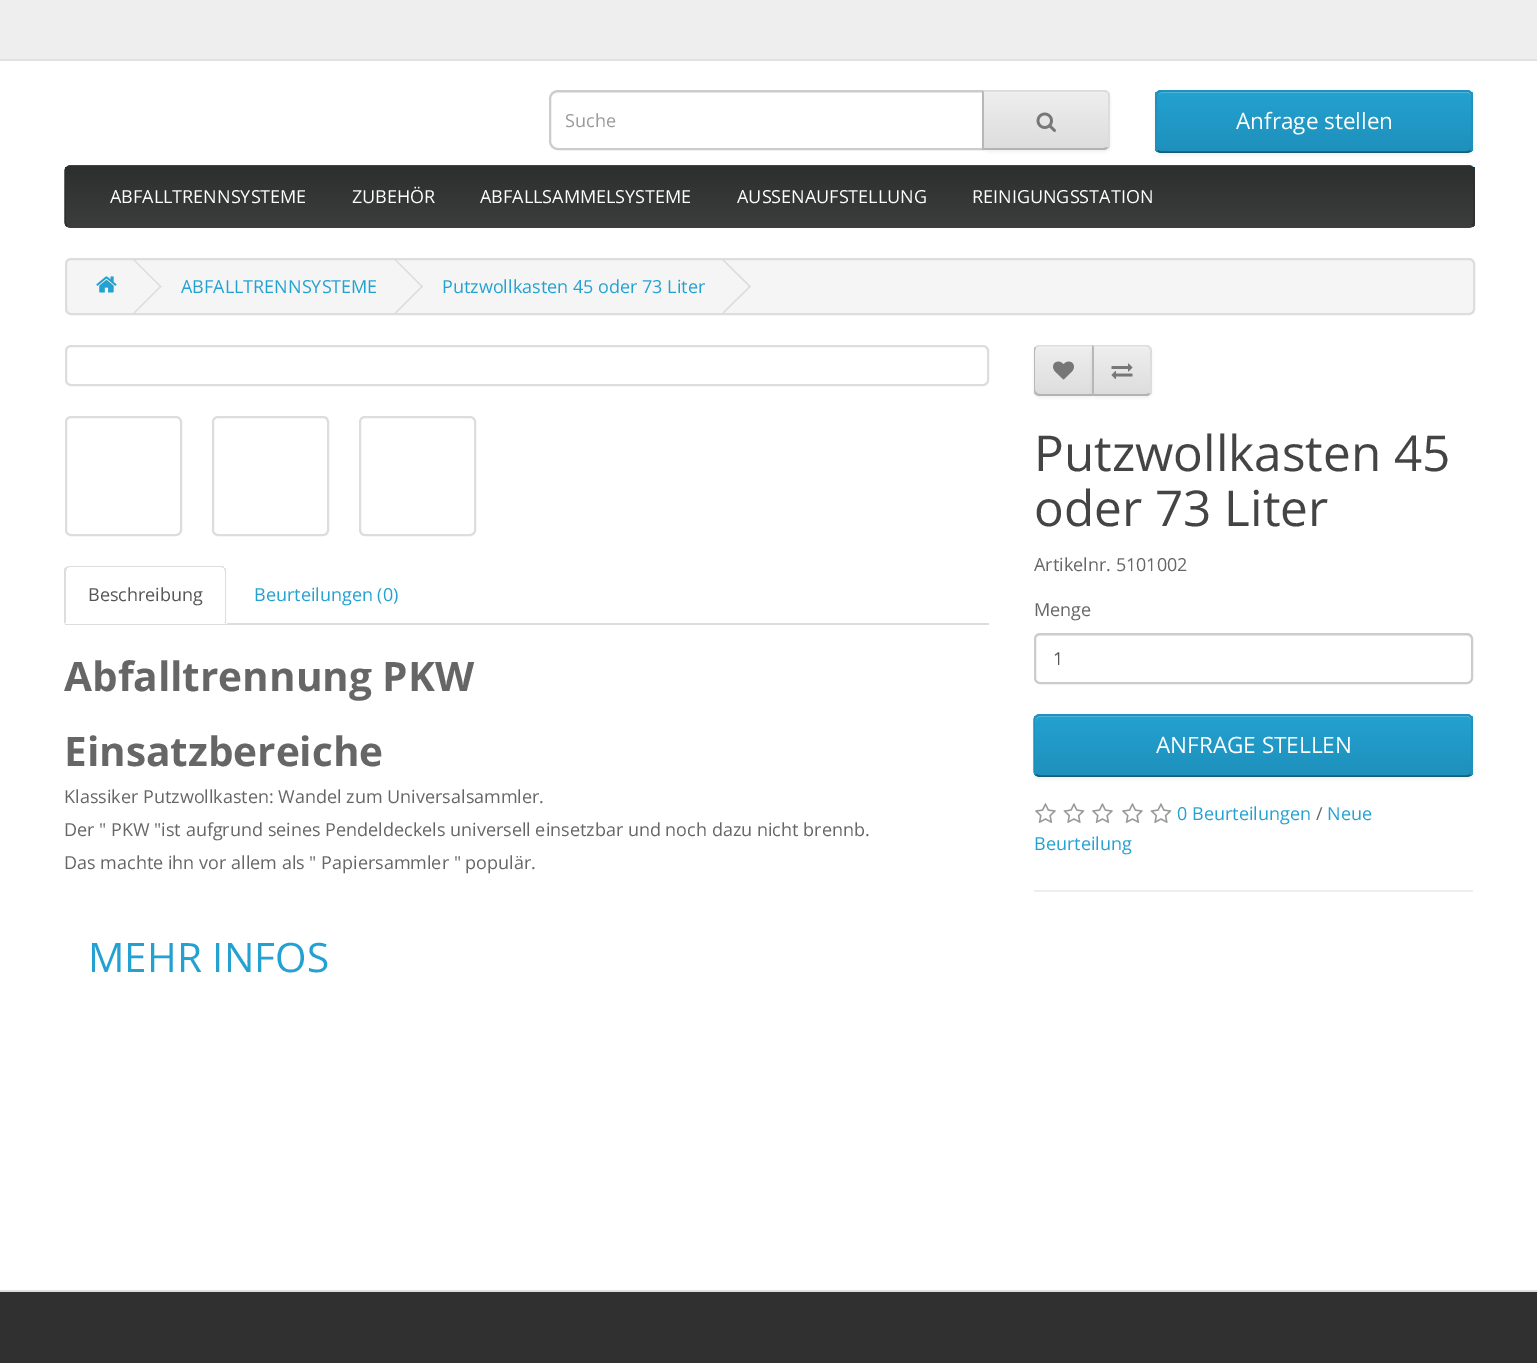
%!PS
<< /PageSize [1537 1363] /PageUsesTransparency true >> setpagedevice
/m/moveto load def
/l/rlineto load def
/c/rcurveto load def
/z/closepath load def
/f/fill load def
/s/stroke load def
/q/gsave load def
/Q_/grestore load def
/w/setlinewidth load def
/C { dup -16 bitshift 255 div exch dup -8 bitshift 255 and 255 div exch 255 and 255 div setrgbcolor } def
/F { [ exch dup neg 0 0 3 -1 roll 0 0 ] selectfont } def
/T { moveto show } def
/R { rectfill } def
/A { dup .setfillconstantalpha .setstrokeconstantalpha } def
/Q { 5 dict begin { /r /h /w /y /x } { exch def } forall
  x r add y moveto x w add y 2 copy h add r arct x w add y h add x 1 index r arct
  x y h add x y r arct x y 2 copy exch w add exch r arct closepath end } def
/S { 12 dict begin { /a /b /q /h /w /y /x } { exch def } forall gsave /was 0 def
  9 -2 -9 { dup b mul 4 div /e exch def 1 sub .425 mul 2.718 exch exp 1 add a .99 .min exch div /now exch def
    1 1 now sub 1 was sub div sub A /was now def
    w h .min e 2 mul add 0 gt { x e sub y e sub w e 2 mul add h e 2 mul add
      q e add b .6 mul add w h .min 2 div e add .min 0 .max Q fill } if } for grestore end } def
/I { 5 dict begin { /h /w /y /x /name } { exch def } forall
  gsave x y translate w h scale
  w h 8 [w 0 0 h 0 0] name (r) file false 3 colorimage grestore end } def
0 .pushpdf14devicefilter
0 1363 translate 1 -1 scale
4 setmiterlimit
16#FFFFFF C
0 0 1537 1363 R
16#EEEEEE C
0 0 1537 59 R
16#E2E2E2 C
0 59 1537 2 R
16#ECECEC C
558 93 m 424 0 l 0 56 l 1 0 l 0 -57 l -424 0 l -2 0 -4 1 -6 2 c 2 0 3 -1 5 -1 c z f
16#CCCCCC C
2 w
558 91 m 425 0 l 0 58 l -425 0 l -4.5 0 -8 -3.5 -8 -8 c 0 -42 l 0 -4.5 3.5 -8 8 -8 c z s
/OpenSans-Regular 18 F
16#999999 C
(Suche) 565 127 T
16#000000 C
983 92 127 60 6 1.5 .05 S
16#E7E7E7 C
983 90 m 121 0 l 3.5 0 6 2.5 6 6 c 0 48 l 0 3.5 -2.5 6 -6 6 c -121 0 l z f
q
983 90 m 121 0 l 3.5 0 6 2.5 6 6 c 0 48 l 0 3.5 -2.5 6 -6 6 c -121 0 l z clip newpath
q 983 92 m 127 0 l 0 57 l -127 0 l z clip newpath
<< /ShadingType 2 /ColorSpace /DeviceRGB /Coords [1046 92 1046 149] /Extend [true true] /Function << /FunctionType 2 /Domain [0 1] /C0 [.933 .933 .933] /C1 [.867 .867 .867] /N 1 >> >> shfill Q_
Q_
0.2 A
16#FFFFFF C
984 93 m 120 0 l 6 0 4 11 4 13 c 0 41 l 1 -1 1 -2 1 -3 c 0 -47 l 0 -3 -2 -5 -5 -5 c -120 0 l z f
1 A
16#DDDDDD C
982 90 m 2 2 l 120 0 l 3 1 l 1 -1 l -1 -1 -2 -2 -4 -2 c z f
1110 144 m 0 -48 l 0 -2 -1 -3 -2 -4 c -1 1 l 1 1 1 2 1 3 c 0 48 l 0 1 0 2 -1 3 c 1 1 l 1 -1 2 -2 2 -4 c z f
16#B3B3B3 C
982 150 m 123 0 l 3 -2 l -1 -1 l -3 1 l -120 0 l z f
16#B7B7B7 C
984 92 m -2 -2 l 0 60 l 2 -2 l z f
(1.rgb) 1036 112 20 20 I
16#000000 C
1155 92 318 63 6 1.5 .05 S
16#229AC8 C
1155 90 318 63 6 Q f
q
1155 90 318 63 6 Q clip newpath
q 1155 92 m 318 0 l 0 60 l -318 0 l z clip newpath
<< /ShadingType 2 /ColorSpace /DeviceRGB /Coords [1314 91 1314 152] /Extend [true true] /Function << /FunctionType 2 /Domain [0 1] /C0 [.137 .631 .82] /C1 [.122 .565 .733] /N 1 >> >> shfill Q_
Q_
16#4FB4D9 C
1161 93 m 306 0 l 2 0 5 2 5 5 c 0 -3 -2 -6 -5 -6 c -305 0 l -2 1 l -2 1 l z f
16#145E7A C
1.5 w
1470.5 150.5 m -1 1 -2 1.5 -3.5 1.5 c -306 0 l -1.5 0 -2.5 -.5 -3.5 -1.5 c s
16#1F90BB C
1157.5 150.5 m -1 -1 -1.5 -2 -1.5 -3.5 c 0 -51 l 0 -1.5 .5 -2.5 1.5 -3.5 c 1 -1 2 -1.5 3.5 -1.5 c 306 0 l 1.5 0 2.5 .5 3.5 1.5 c 1 1 1.5 2 1.5 3.5 c 0 51 l 0 1.5 -.5 2.5 -1.5 3.5 c s
/OpenSans-Regular 22.5 F
16#FFFFFF C
(Anfrage stellen) 1236 129 T
16#229AC8 C
65 165 1410 63 6 Q f
q
65 165 1410 63 6 Q clip newpath
q 65 167 m 1410 0 l 0 60 l -1410 0 l z clip newpath
<< /ShadingType 2 /ColorSpace /DeviceRGB /Coords [770 166 770 227] /Extend [true true] /Function << /FunctionType 2 /Domain [0 1] /C0 [.176 .18 .18] /C1 [.235 .239 .239] /N 1 >> >> shfill Q_
Q_
16#3C3D3D C
1472 225.5 m -1 1 -2 1.5 -3.5 1.5 c -1398 0 l -1.5 0 -2.5 -.5 -3.5 -1.5 c s
16#2D2E2E C
67 225.5 m -1 -1 -2 -2 -2 -3.5 c 0 -51 l 0 -1.5 1 -2.5 2 -3.5 c 1 -1 2 -1.5 3.5 -1.5 c 1398 0 l 1.5 0 2.5 .5 3.5 1.5 c 1 1 2 2 2 3.5 c 0 51 l 0 1.5 -1 2.5 -2 3.5 c s
/OpenSans-Regular 18 F
16#FFFFFF C
(ABFALLTRENNSYSTEME) 110 203 T
(ZUBEHÖR) 352 203 T
(ABFALLSAMMELSYSTEME) 480 203 T
(AUSSENAUFSTELLUNG) 737 203 T
(REINIGUNGSSTATION) 972 203 T
16#F5F5F5 C
66 259 1408 55 5 Q q f Q_
16#DDDDDD C
2 w
s
(2.rgb) 96 276 21 17 I
133 260 m 1 -1 l 27.5 27.5 l -1 1 l z f
133 313 m 27.5 -27.5 l 1 1 l -27.5 27.5 l z f
16#23A1D1 C
(ABFALLTRENNSYSTEME) 181 293 T
16#DDDDDD C
394.5 260 m 1 -1 l 27.5 27.5 l -1 1 l z f
394.5 313 m 27.5 -27.5 l 1 1 l -27.5 27.5 l z f
16#23A1D1 C
(Putzwollkasten 45 oder 73 Liter) 442 293 T
16#DDDDDD C
722 260 m 1 -1 l 28 27.5 l -1 1 l z f
722 313 m 28 -27.5 l 1 1 l -28 27.5 l z f
66 346 922 39 5 Q s
66 417 115 118 5 Q s
213 417 115 118 5 Q s
360 417 115 118 5 Q s
65 623 924 2 R
16#FFFFFF C
71 566 m 150 0 l 3.5 0 6 2.5 6 6 c 0 52 l -162 0 l 0 -52 l 0 -3.5 2.5 -6 6 -6 c z f
16#DDDDDD C
70 566 m -4 1 l 1 1 l 3 -1 l 151 0 l 3 1 l 0 -2 -2 -2 -4 -2 c z f
226 624 m 0 -52 l 0 -2 0 -4 -2 -4 c 0 1 1 2 1 4 c 0 50 l -1 0 l z f
64 624 m 2 -2 l 0 -50 l 0 -2 1 -3 1 -4 c -1 -1 l -2 2 l z f
16#555555 C
(Beschreibung) 88 601 T
16#23A1D1 C
(Beurteilungen \(0\)) 254 601 T
/OpenSans-Bold 40.5 F
16#666666 C
(Abfalltrennung PKW) 64 691 T
(Einsatzbereiche) 64 766 T
/OpenSans-Regular 18 F
(Klassiker Putzwollkasten: Wandel zum Universalsammler.) 64 803 T
(Der " PKW "ist aufgrund seines Pendeldeckels universell einsetzbar und noch dazu nicht brennb.) 64 836 T
(Das machte ihn vor allem als " Papiersammler " populär.) 64 869 T
/OpenSans-Regular 40.5 F
16#23A1D1 C
(MEHR INFOS) 88 972 T
16#000000 C
1034 347 60 51 6 1.5 .05 S
16#E7E7E7 C
1040 345 m 54 0 l 0 51 l -54 0 l -3.5 0 -6 -2.5 -6 -6 c 0 -39 l 0 -3.5 2.5 -6 6 -6 c z f
q
1040 345 m 54 0 l 0 51 l -54 0 l -3.5 0 -6 -2.5 -6 -6 c 0 -39 l 0 -3.5 2.5 -6 6 -6 c z clip newpath
q 1034 347 m 58 0 l 0 48 l -58 0 l z clip newpath
<< /ShadingType 2 /ColorSpace /DeviceRGB /Coords [1064 347 1064 395] /Extend [true true] /Function << /FunctionType 2 /Domain [0 1] /C0 [.933 .933 .933] /C1 [.867 .867 .867] /N 1 >> >> shfill Q_
Q_
16#F1F1F1 C
1040 348 m 52 0 l 0 -1 l -52 0 l -3 0 -5 2 -5 5 c 0 -2 2 -4 5 -4 c z f
16#DDDDDD C
1040 345 m -2 0 -4 1 -5 2 c 1 1 l 3 -2 l 53 0 l 2 -1 l z f
16#B3B3B3 C
1094 396 m -2 -2 l -52 0 l -1 0 -3 0 -3 -1 c -2 1 l 1 1 3 2 5 2 c z f
16#B7B7B7 C
1035 347 m -1 1 -1 3 -1 4 c 0 39 l 0 1 0 3 1 4 c 2 -1 l -1 -1 -2 -2 -2 -3 c 0 -39 l 0 -1 0 -2 1 -3 c z f
(3.rgb) 1053 361 21 19 I
16#000000 C
1092 347 60 51 6 1.5 .05 S
16#E7E7E7 C
1092 345 m 54 0 l 3.5 0 6 2.5 6 6 c 0 39 l 0 3.5 -2.5 6 -6 6 c -54 0 l z f
q
1092 345 m 54 0 l 3.5 0 6 2.5 6 6 c 0 39 l 0 3.5 -2.5 6 -6 6 c -54 0 l z clip newpath
q 1093 347 m 59 0 l 0 48 l -59 0 l z clip newpath
<< /ShadingType 2 /ColorSpace /DeviceRGB /Coords [1122 347 1122 395] /Extend [true true] /Function << /FunctionType 2 /Domain [0 1] /C0 [.933 .933 .933] /C1 [.867 .867 .867] /N 1 >> >> shfill Q_
Q_
0.2 A
16#FFFFFF C
1094 348 m 43 0 l 16 0 13 0 13 17 c 0 28 l 1 -1 1 -2 1 -3 c 0 -38 l 0 -3 -2 -5 -5 -5 c -52 0 l z f
1 A
16#DDDDDD C
1092 345 m 2 2 l 0 -1 l 52 0 l 3 2 l 1 -1 l -1 -1 -2 -2 -4 -2 c z f
1152 390 m 0 -39 l 0 -1 -1 -3 -2 -4 c -1 1 l 2 3 1 6 1 10 c 0 32 l -1 3 l 1 1 l 1 -1 2 -2 2 -4 c z f
16#B3B3B3 C
1146 396 m 2 0 3 -1 4 -2 c -1 -1 l -3 1 l -52 0 l -2 2 l z f
16#B7B7B7 C
1092 345 m 0 51 l 2 -2 l 0 -47 l z f
(4.rgb) 1111 363 22 16 I
/OpenSans-Regular 49.5 F
16#444444 C
(Putzwollkasten 45) 1034 471 T
(oder 73 Liter) 1034 526 T
/OpenSans-Regular 18 F
16#666666 C
(Artikelnr. 5101002) 1034 571 T
(Menge) 1034 616 T
16#ECECEC C
1040 636 m 427 0 l 2 0 5 2 5 4 c 0 -3 -2 -5 -5 -5 c -427 0 l -3 0 -5 2 -5 5 c 0 -2 2 -4 5 -4 c z f
16#CCCCCC C
1035 634 437 49 5 Q s
16#555555 C
(1) 1053 665 T
16#000000 C
1034 716 439 63 6 1.5 .05 S
16#229AC8 C
1034 714 439 63 6 Q f
q
1034 714 439 63 6 Q clip newpath
q 1034 716 m 439 0 l 0 60 l -439 0 l z clip newpath
<< /ShadingType 2 /ColorSpace /DeviceRGB /Coords [1253 716 1253 776] /Extend [true true] /Function << /FunctionType 2 /Domain [0 1] /C0 [.137 .631 .82] /C1 [.122 .565 .733] /N 1 >> >> shfill Q_
Q_
16#4FB4DA C
1040 717 m 427 0 l 2 0 5 2 5 5 c 0 -3 -2 -6 -5 -6 c -427 0 l -3 0 -5 3 -5 6 c 0 -3 2 -5 5 -5 c z f
16#145E7A C
1.5 w
1470.5 774.5 m -1 1 -2 1.5 -3.5 1.5 c -427.5 0 l -1.5 0 -2.5 -.5 -3.5 -1.5 c s
16#1F90BB C
1036 774.5 m -1 -1 -2 -2 -2 -3.5 c 0 -51 l 0 -1.5 1 -2.5 2 -3.5 c 1 -1 2 -1.5 3.5 -1.5 c 427.5 0 l 1.5 0 2.5 .5 3.5 1.5 c 1 1 1.5 2 1.5 3.5 c 0 51 l 0 1.5 -.5 2.5 -1.5 3.5 c s
/OpenSans-Regular 22.5 F
16#FFFFFF C
(ANFRAGE STELLEN) 1156 753 T
(5.rgb) 1035 803 21 20 I
(6.rgb) 1063 803 22 20 I
(5.rgb) 1092 803 21 20 I
(5.rgb) 1122 803 21 20 I
(6.rgb) 1150 803 22 20 I
/OpenSans-Regular 18 F
16#23A1D1 C
(0 Beurteilungen) 1177 820 T
16#666666 C
(/) 1316 820 T
16#23A1D1 C
(Neue) 1327 820 T
(Beurteilung) 1034 850 T
16#EEEEEE C
1034 890 439 2 R
16#303030 C
0 1292 1537 71 R
16#DDDDDD C
0 1290 1537 2 R
.poppdf14devicefilter showpage
